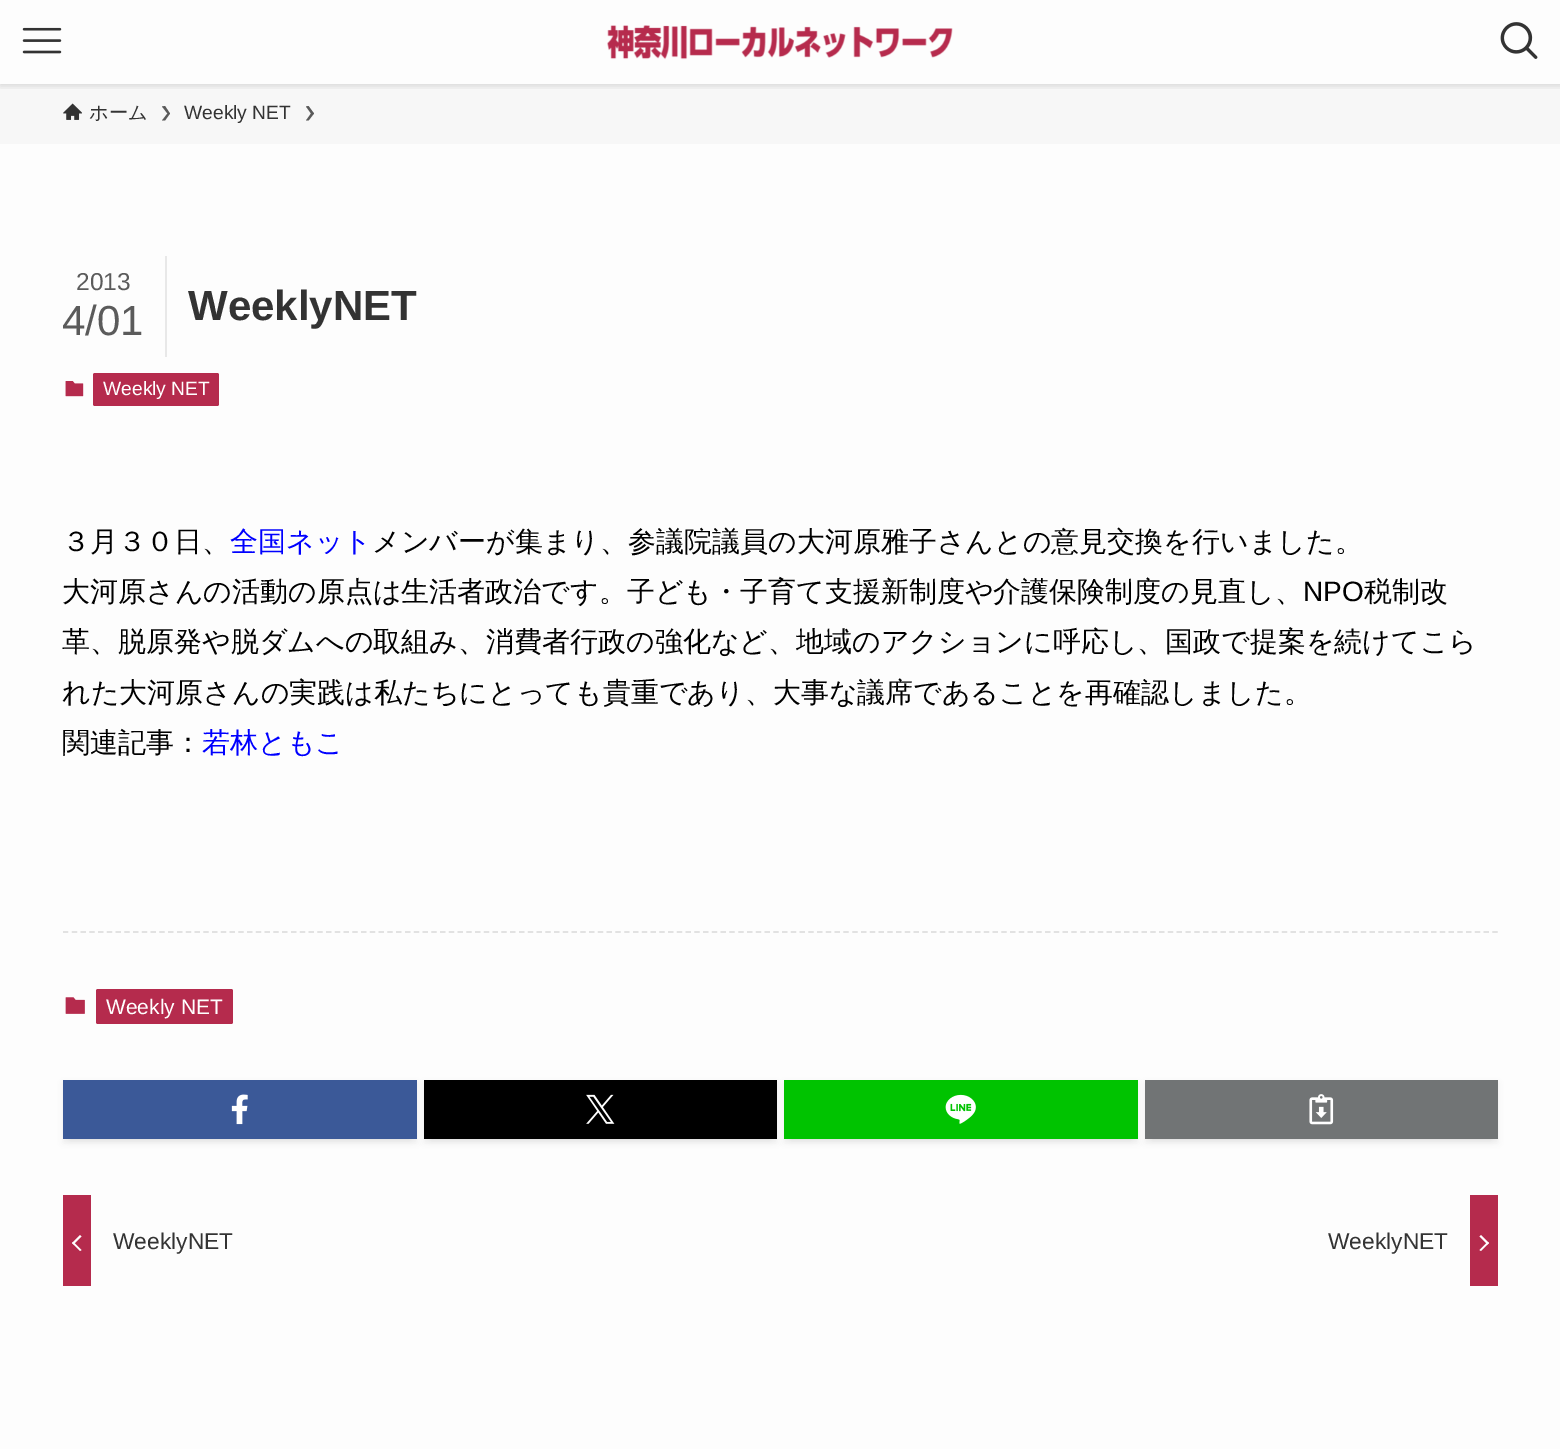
%!PS
<< /PageSize [1560 1449] /PageUsesTransparency true >> setpagedevice
/m/moveto load def
/l/rlineto load def
/z/closepath load def
/f/fill load def
/s/stroke load def
/q/gsave load def
/Q_/grestore load def
/w/setlinewidth load def
/C { dup -16 bitshift 255 div exch dup -8 bitshift 255 and 255 div exch 255 and 255 div setrgbcolor } def
/F { [ exch dup neg 0 0 3 -1 roll 0 0 ] selectfont } def
/T { moveto show } def
/R { rectfill } def
/A { dup .setfillconstantalpha .setstrokeconstantalpha } def
/Q { 5 dict begin { /r /h /w /y /x } { exch def } forall
  x r add y moveto x w add y 2 copy h add r arct x w add y h add x 1 index r arct
  x y h add x y r arct x y 2 copy exch w add exch r arct closepath end } def
/S { 12 dict begin { /a /b /q /h /w /y /x } { exch def } forall gsave /was 0 def
  9 -2 -9 { dup b mul 4 div /e exch def 1 sub .425 mul 2.718 exch exp 1 add a .99 .min exch div /now exch def
    1 1 now sub 1 was sub div sub A /was now def
    w h .min e 2 mul add 0 gt { x e sub y e sub w e 2 mul add h e 2 mul add
      q e add b .6 mul add w h .min 2 div e add .min 0 .max Q fill } if } for grestore end } def
/I { 5 dict begin { /h /w /y /x /name } { exch def } forall
  gsave x y translate w h scale
  w h 8 [w 0 0 h 0 0] name (r) file false 3 colorimage grestore end } def
0 .pushpdf14devicefilter
0 1449 translate 1 -1 scale
4 setmiterlimit
16#FDFDFD C
0 0 1560 1449 R
16#F7F7F7 C
0 84 1560 60 R
q
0 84 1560 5 rectclip
16#000000 C
0 2 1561 84 0 3.5 .12 S
Q_
(1.rgb) 22 27 40 27 I
(2.rgb) 607 25 346 35 I
(3.rgb) 1500 22 38 37 I
(4.rgb) 63 103 19 17 I
/WenQuanYiZenHei-Medium 19.25 F
16#333333 C
(ホーム) 89 119 T
16#5A5A5A C
165 106 m -3 .5 l 5.5 7 l -5.5 7 l 3 0 l 5 -7 l z f
/LiberationSans-Regular 19.25 F
16#333333 C
(Weekly NET) 184 119 T
16#5A5A5A C
308.5 106 m -2.5 .5 l 5 7 l -5 7 l 2.5 0 l 5.5 -7 l z f
16#E8E8E8 C
165 256 2 101 R
/LiberationSans-Regular 24.5 F
16#5B5B5B C
(2013) 76 290 T
/LiberationSans-Regular 42 F
(4/01) 62 335 T
/LiberationSans-Bold 42 F
16#333333 C
(WeeklyNET) 188 320 T
(5.rgb) 65 381 19 16 I
16#B52B4D C
93 373 126 33 2 Q f
/LiberationSans-Regular 19.25 F
16#FFFFFF C
(Weekly NET) 103 395 T
/WenQuanYiZenHei-Medium 28 F
16#000000 C
(３月３０日、) 62 551 T
16#0000FF C
(全国ネット) 230 551 T
16#000000 C
(メンバーが集まり、参議院議員の大河原雅子さんとの意見交換を行いました。) 372 551 T
(大河原さんの活動の原点は生活者政治です。子ども・子育て支援新制度や介護保険制度の見直し、) 62 601 T
/LiberationSans-Regular 28 F
(NPO) 1303 601 T
/WenQuanYiZenHei-Medium 28 F
(税制改) 1364 601 T
(革、脱原発や脱ダムへの取組み、消費者行政の強化など、地域のアクションに呼応し、国政で提案を続けてこら) 62 651 T
(れた大河原さんの実践は私たちにとっても貴重であり、大事な議席であることを再確認しました。) 62 702 T
(関連記事：) 62 752 T
16#0000FF C
(若林ともこ) 202 752 T
16#E2E2E2 C
1.8 w
[5.25 3.52] 0 setdash
63 932 m 1435 0 l s
(6.rgb) 65 997 20 17 I
16#B52B4D C
96 989 137 35 2 Q f
/LiberationSans-Regular 21 F
16#FFFFFF C
(Weekly NET) 106 1014 T
16#000000 C
70 1094 340 45 0 3.5 .1 S
63 1083 354 60 0 3.5 .05 S
16#3B5998 C
63 1080 354 59 R
(7.rgb) 231 1094 17 31 I
16#000000 C
431 1094 339 45 0 3.5 .1 S
424 1083 353 60 0 3.5 .05 S
424 1080 353 59 R
(8.rgb) 586 1094 29 30 I
791 1094 340 45 0 3.5 .1 S
784 1083 354 60 0 3.5 .05 S
16#00C300 C
784 1080 354 59 R
(9.rgb) 945 1094 31 30 I
16#000000 C
1152 1094 339 45 0 3.5 .1 S
1145 1083 353 60 0 3.5 .05 S
16#717475 C
1145 1080 353 59 R
(10.rgb) 1309 1094 25 31 I
16#B52B4D C
63 1195 28 91 R
16#FFFFFF C
73.5 1242 m 8 8 l -1.5 1 l -8 -8 l z f
80 1235 m 1.5 1.5 l -8 8 l -1.5 -1.5 l z f
/LiberationSans-Regular 22.75 F
16#333333 C
(WeeklyNET) 113 1249 T
16#B52B4D C
1470 1195 28 91 R
16#333333 C
(WeeklyNET) 1328 1249 T
16#FFFFFF C
1479.5 1236.5 m 1.5 -1.5 l 8 8 l -1.5 1.5 l z f
1479.5 1250 m 8 -8 l 1.5 1 l -8 8 l z f
.poppdf14devicefilter showpage
